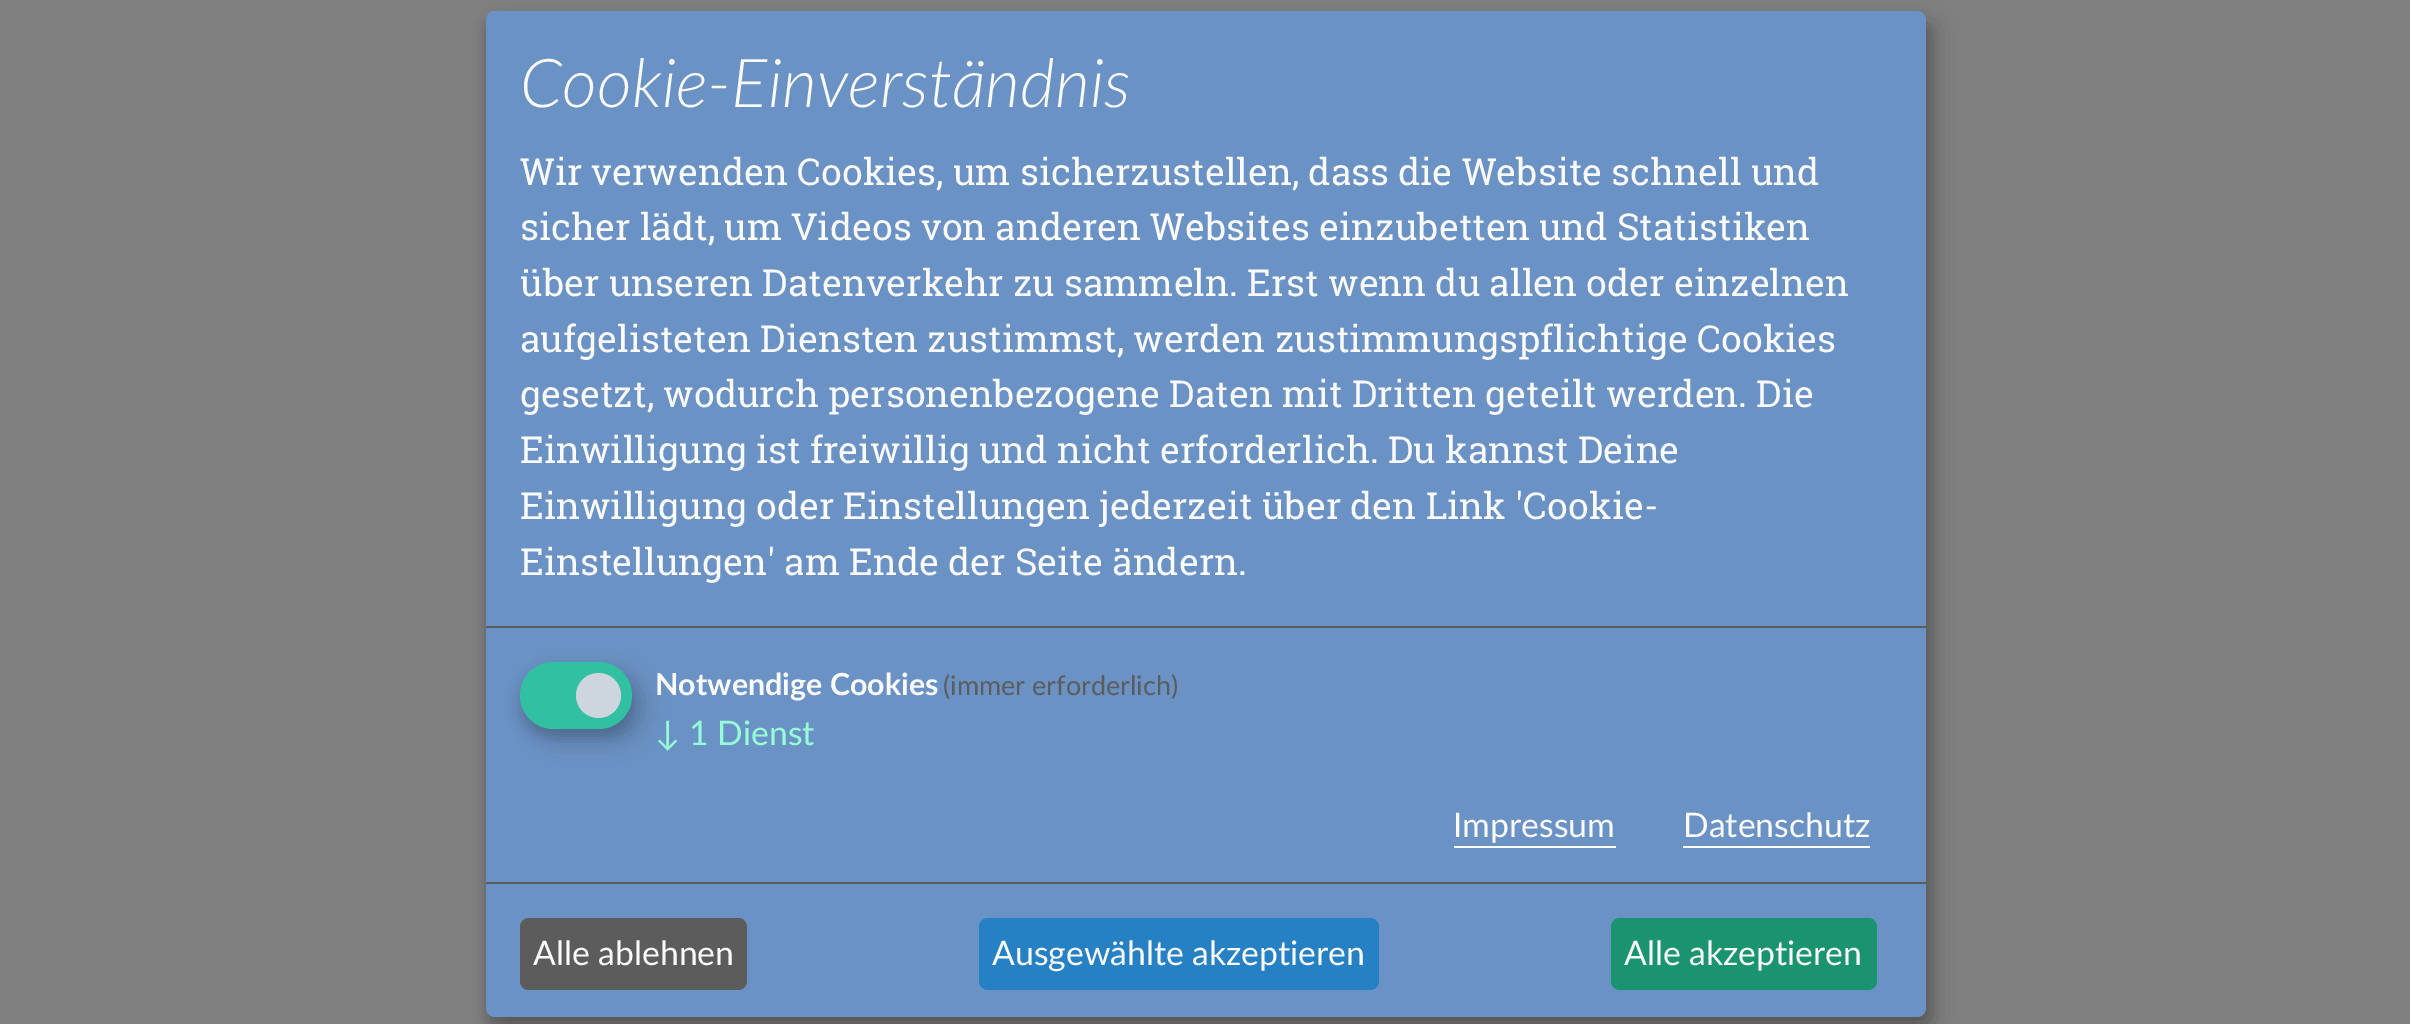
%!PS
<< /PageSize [2410 1024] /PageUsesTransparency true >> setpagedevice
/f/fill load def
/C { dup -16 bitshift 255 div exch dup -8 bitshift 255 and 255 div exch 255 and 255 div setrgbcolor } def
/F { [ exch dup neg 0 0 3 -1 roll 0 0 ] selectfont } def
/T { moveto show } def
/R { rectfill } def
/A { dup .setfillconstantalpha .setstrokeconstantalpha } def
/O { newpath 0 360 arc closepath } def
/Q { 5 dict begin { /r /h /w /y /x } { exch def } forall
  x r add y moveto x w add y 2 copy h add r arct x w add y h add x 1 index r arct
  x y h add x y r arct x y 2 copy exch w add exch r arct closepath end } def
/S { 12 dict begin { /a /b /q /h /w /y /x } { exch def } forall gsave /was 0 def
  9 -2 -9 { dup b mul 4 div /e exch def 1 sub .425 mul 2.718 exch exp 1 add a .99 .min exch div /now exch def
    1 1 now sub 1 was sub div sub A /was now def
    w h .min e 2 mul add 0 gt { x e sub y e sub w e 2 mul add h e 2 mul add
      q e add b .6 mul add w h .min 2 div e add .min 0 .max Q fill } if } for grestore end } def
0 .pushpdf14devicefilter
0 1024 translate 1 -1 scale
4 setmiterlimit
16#808080 C
0 0 2410 1024 R
16#000000 C
497 23 1440 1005 9 11 .19 S
486 20 1440 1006 9 7 .2 S
16#6A92C4 C
486 11 1440 1006 9 Q f
16#5C5C5C C
486 626 1440 2 R
/Lato-LightItalic 67.5 F
16#FAFAFA C
(Cookie-Einverständnis) 520 107 T
/RobotoSlab-Regular 37.1 F
(Wir verwenden Cookies, um sicherzustellen, dass die Website schnell und) 520 185 T
(sicher lädt, um Videos von anderen Websites einzubetten und Statistiken) 520 240 T
(über unseren Datenverkehr zu sammeln. Erst wenn du allen oder einzelnen) 520 296 T
(aufgelisteten Diensten zustimmst, werden zustimmungspflichtige Cookies) 520 352 T
(gesetzt, wodurch personenbezogene Daten mit Dritten geteilt werden. Die) 520 407 T
(Einwilligung ist freiwillig und nicht erforderlich. Du kannst Deine) 520 463 T
(Einwilligung oder Einstellungen jederzeit über den Link 'Cookie-) 520 519 T
(Einstellungen' am Ende der Seite ändern.) 520 575 T
16#000000 C
531 673 113 67 33.5 11 .15 S
16#151D27 C
520 671 112 67 33.5 7 .2 S
16#32C0A2 C
520 662 112 67 33.5 Q f
16#CDD5DF C
598.5 695.5 22.5 O f
/Lato-Bold 30.4 F
16#FAFAFA C
(Notwendige Cookies) 655 695 T
/Lato-Regular 27 F
16#5C5C5C C
(\(immer erforderlich\)) 943 695 T
/Lato-Regular 33.75 F
16#97FDD6 C
(↓ 1 Dienst) 655 745 T
16#FAFAFA C
(Impressum) 1453 837 T
16#FFFFFF C
1454 846 162 2 R
16#FAFAFA C
(Datenschutz) 1683 837 T
16#FFFFFF C
1683 846 187 2 R
16#5C5C5C C
486 882 1440 2 R
520 918 227 72 9 Q f
16#FAFAFA C
(Alle ablehnen) 533 965 T
16#2581C4 C
979 918 400 72 9 Q f
16#FAFAFA C
(Ausgewählte akzeptieren) 992 965 T
16#1A936F C
1611 918 266 72 9 Q f
16#FAFAFA C
(Alle akzeptieren) 1624 965 T
.poppdf14devicefilter showpage
